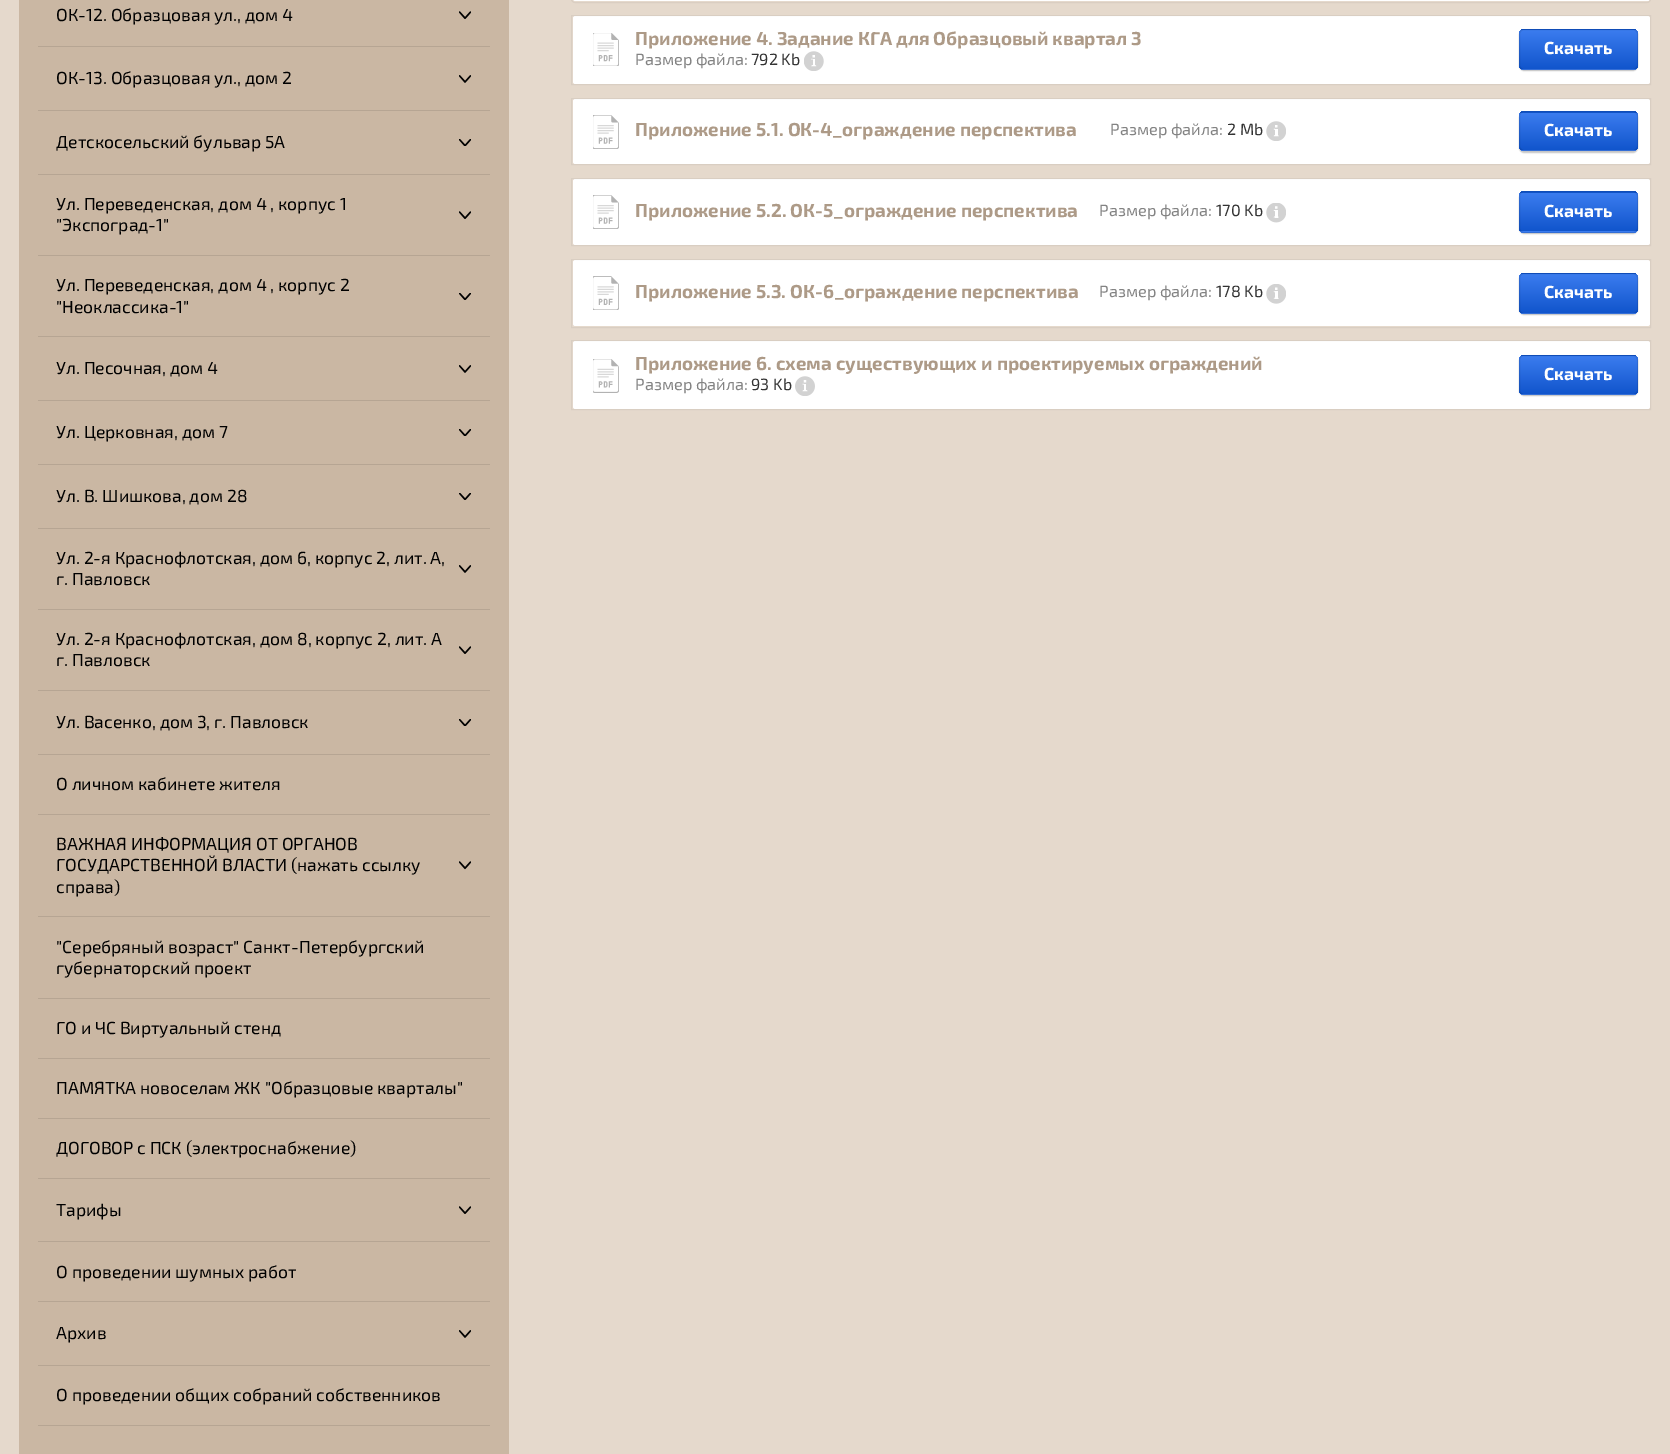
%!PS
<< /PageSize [1670 1454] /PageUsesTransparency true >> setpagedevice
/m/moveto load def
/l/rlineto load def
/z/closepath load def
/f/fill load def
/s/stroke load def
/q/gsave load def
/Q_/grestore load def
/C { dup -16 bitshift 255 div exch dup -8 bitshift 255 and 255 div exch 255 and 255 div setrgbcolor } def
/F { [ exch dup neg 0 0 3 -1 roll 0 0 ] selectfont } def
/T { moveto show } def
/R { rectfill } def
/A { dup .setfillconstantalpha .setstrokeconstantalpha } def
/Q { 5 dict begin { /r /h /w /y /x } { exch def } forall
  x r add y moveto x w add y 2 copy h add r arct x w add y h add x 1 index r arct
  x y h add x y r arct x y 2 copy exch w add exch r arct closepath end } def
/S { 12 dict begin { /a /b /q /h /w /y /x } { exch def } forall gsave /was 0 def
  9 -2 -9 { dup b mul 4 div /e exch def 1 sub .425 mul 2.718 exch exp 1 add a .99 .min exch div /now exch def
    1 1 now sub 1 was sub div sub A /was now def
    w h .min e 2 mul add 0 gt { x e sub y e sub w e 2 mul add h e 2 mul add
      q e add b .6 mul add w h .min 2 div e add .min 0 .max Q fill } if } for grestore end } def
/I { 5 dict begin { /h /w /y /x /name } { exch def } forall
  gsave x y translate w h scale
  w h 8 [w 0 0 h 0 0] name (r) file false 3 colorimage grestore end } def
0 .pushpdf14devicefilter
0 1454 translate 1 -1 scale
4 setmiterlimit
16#E5D9CC C
0 0 1670 1454 R
16#CAB7A3 C
19 0 490 1454 R
16#B6A593 C
38 46 452 1 R
/Exo2-Regular 17.5 F
16#000000 C
(ОК-12. Образцовая ул., дом 4) 56 21 T
(1.rgb) 459 11 12 8 I
16#B6A593 C
38 110 452 1 R
16#000000 C
(ОК-13. Образцовая ул., дом 2) 56 84 T
(2.rgb) 459 75 12 8 I
16#B6A593 C
38 174 452 1 R
16#000000 C
(Детскосельский бульвар 5А) 56 148 T
(3.rgb) 459 139 12 7 I
16#B6A593 C
38 255 452 1 R
16#000000 C
(Ул. Переведенская, дом 4 , корпус 1) 56 210 T
("Экспоград-1") 56 231 T
(1.rgb) 459 211 12 8 I
16#B6A593 C
38 336 452 1 R
16#000000 C
(Ул. Переведенская, дом 4 , корпус 2) 56 291 T
("Неоклассика-1") 56 313 T
(4.rgb) 459 293 12 7 I
16#B6A593 C
38 400 452 1 R
16#000000 C
(Ул. Песочная, дом 4) 56 374 T
(2.rgb) 459 365 12 8 I
16#B6A593 C
38 464 452 1 R
16#000000 C
(Ул. Церковная, дом 7) 56 438 T
(3.rgb) 459 429 12 7 I
16#B6A593 C
38 528 452 1 R
16#000000 C
(Ул. В. Шишкова, дом 28) 56 502 T
(4.rgb) 459 493 12 7 I
16#B6A593 C
38 609 452 1 R
16#000000 C
(Ул. 2-я Краснофлотская, дом 6, корпус 2, лит. А,) 56 564 T
(г. Павловск) 56 585 T
(2.rgb) 459 565 12 8 I
16#B6A593 C
38 690 452 1 R
16#000000 C
(Ул. 2-я Краснофлотская, дом 8, корпус 2, лит. А) 56 645 T
(г. Павловск) 56 666 T
(1.rgb) 459 646 12 8 I
16#B6A593 C
38 754 452 1 R
16#000000 C
(Ул. Васенко, дом 3, г. Павловск) 56 728 T
(3.rgb) 459 719 12 7 I
16#B6A593 C
38 814 452 1 R
16#000000 C
(О личном кабинете жителя) 56 790 T
16#B6A593 C
38 916 452 1 R
16#000000 C
(ВАЖНАЯ ИНФОРМАЦИЯ ОТ ОРГАНОВ) 56 850 T
(ГОСУДАРСТВЕННОЙ ВЛАСТИ \(нажать ссылку) 56 871 T
(справа\)) 56 893 T
(5.rgb) 459 861 12 9 I
16#B6A593 C
38 998 452 1 R
16#000000 C
("Серебряный возраст" Санкт-Петербургский) 56 953 T
(губернаторский проект) 56 974 T
16#B6A593 C
38 1058 452 1 R
16#000000 C
(ГО и ЧС Виртуальный стенд) 56 1034 T
16#B6A593 C
38 1118 452 1 R
16#000000 C
(ПАМЯТКА новоселам ЖК "Образцовые кварталы") 56 1094 T
16#B6A593 C
38 1178 452 1 R
16#000000 C
(ДОГОВОР с ПСК \(электроснабжение\)) 56 1154 T
16#B6A593 C
38 1241 452 1 R
16#000000 C
(Тарифы) 56 1216 T
(1.rgb) 459 1206 12 8 I
16#B6A593 C
38 1301 452 1 R
16#000000 C
(О проведении шумных работ) 56 1278 T
16#B6A593 C
38 1365 452 1 R
16#000000 C
(Архив) 56 1339 T
(2.rgb) 459 1330 12 8 I
16#B6A593 C
38 1425 452 1 R
16#000000 C
(О проведении общих собраний собственников) 56 1401 T
16#FFFFFF C
573 -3 1077 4 2.5 Q f
16#DACEC2 C
571.5 -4.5 1079 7 3.5 Q s
16#FFFFFF C
573 16 1077 68 2.5 Q f
(6.rgb) 593 33 26 33 I
0.05 A
16#000000 C
571.5 15.5 1079 69 rectstroke
/Exo2-Bold 18.75 F
1 A
16#AD9A87 C
(Приложение 4. Задание КГА для Образцовый квартал 3) 635 45 T
/Exo2-Regular 16.25 F
16#838383 C
(Размер файла:) 635 65 T
16#333333 C
(792 Kb) 751 65 T
(7.rgb) 804 51 20 20 I
16#000000 C
1519 30 119 41 5 .5 .2 S
q
1519 29 119 41 5 Q clip newpath
q 1519 29 m 119 0 l 0 1 l -119 0 l z clip newpath
<< /ShadingType 2 /ColorSpace /DeviceRGB /Coords [1578 -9 1578 30] /Extend [true true] /Function << /FunctionType 2 /Domain [0 1] /C0 [.231 .486 .937] /C1 [.067 .333 .8] /N 1 >> >> shfill Q_
q 1519 30 m 119 0 l 0 39 l -119 0 l z clip newpath
<< /ShadingType 2 /ColorSpace /DeviceRGB /Coords [1578 30 1578 69] /Extend [true true] /Function << /FunctionType 2 /Domain [0 1] /C0 [.231 .486 .937] /C1 [.067 .333 .8] /N 1 >> >> shfill Q_
q 1519 69 m 119 0 l 0 1 l -119 0 l z clip newpath
<< /ShadingType 2 /ColorSpace /DeviceRGB /Coords [1578 69 1578 108] /Extend [true true] /Function << /FunctionType 2 /Domain [0 1] /C0 [.231 .486 .937] /C1 [.067 .333 .8] /N 1 >> >> shfill Q_
Q_
0.1 A
1519.5 29.5 118 40 4.5 Q s
/Exo2-Bold 17.5 F
1 A
16#FFFFFF C
(Скачать) 1544 54 T
573 99 1077 65 2.5 Q f
(8.rgb) 593 115 26 34 I
0.05 A
16#000000 C
571.5 98.5 1079 66 rectstroke
/Exo2-Bold 18.75 F
1 A
16#AD9A87 C
(Приложение 5.1. ОК-4_ограждение перспектива) 635 136 T
/Exo2-Regular 16.25 F
16#838383 C
(Размер файла:) 1110 135 T
16#333333 C
(2 Mb) 1227 135 T
(9.rgb) 1266 121 20 20 I
16#000000 C
1519 113 119 40 5 .5 .2 S
q
1519 111 119 40 5 Q clip newpath
q 1519 111 m 119 0 l 0 2 l -119 0 l z clip newpath
<< /ShadingType 2 /ColorSpace /DeviceRGB /Coords [1578 75 1578 113] /Extend [true true] /Function << /FunctionType 2 /Domain [0 1] /C0 [.231 .486 .937] /C1 [.067 .333 .8] /N 1 >> >> shfill Q_
q 1519 113 m 119 0 l 0 37 l -119 0 l z clip newpath
<< /ShadingType 2 /ColorSpace /DeviceRGB /Coords [1578 113 1578 150] /Extend [true true] /Function << /FunctionType 2 /Domain [0 1] /C0 [.231 .486 .937] /C1 [.067 .333 .8] /N 1 >> >> shfill Q_
q 1519 150 m 119 0 l 0 1 l -119 0 l z clip newpath
<< /ShadingType 2 /ColorSpace /DeviceRGB /Coords [1578 150 1578 188] /Extend [true true] /Function << /FunctionType 2 /Domain [0 1] /C0 [.231 .486 .937] /C1 [.067 .333 .8] /N 1 >> >> shfill Q_
Q_
0.1 A
1519.5 111.5 118 39 4.5 Q s
/Exo2-Bold 17.5 F
1 A
16#FFFFFF C
(Скачать) 1544 136 T
573 179 1077 66 2.5 Q f
(8.rgb) 593 195 26 34 I
0.05 A
16#000000 C
571.5 178.5 1079 67 rectstroke
/Exo2-Bold 18.75 F
1 A
16#AD9A87 C
(Приложение 5.2. ОК-5_ограждение перспектива) 635 217 T
/Exo2-Regular 16.25 F
16#838383 C
(Размер файла:) 1099 216 T
16#333333 C
(170 Kb) 1216 216 T
(10.rgb) 1266 203 20 20 I
16#000000 C
1519 193 119 41 5 .5 .2 S
q
1519 191 119 42 5 Q clip newpath
q 1519 191 m 119 0 l 0 2 l -119 0 l z clip newpath
<< /ShadingType 2 /ColorSpace /DeviceRGB /Coords [1578 154 1578 193] /Extend [true true] /Function << /FunctionType 2 /Domain [0 1] /C0 [.231 .486 .937] /C1 [.067 .333 .8] /N 1 >> >> shfill Q_
q 1519 193 m 119 0 l 0 38 l -119 0 l z clip newpath
<< /ShadingType 2 /ColorSpace /DeviceRGB /Coords [1578 193 1578 231] /Extend [true true] /Function << /FunctionType 2 /Domain [0 1] /C0 [.231 .486 .937] /C1 [.067 .333 .8] /N 1 >> >> shfill Q_
q 1519 231 m 119 0 l 0 2 l -119 0 l z clip newpath
<< /ShadingType 2 /ColorSpace /DeviceRGB /Coords [1578 231 1578 270] /Extend [true true] /Function << /FunctionType 2 /Domain [0 1] /C0 [.231 .486 .937] /C1 [.067 .333 .8] /N 1 >> >> shfill Q_
Q_
0.1 A
1519.5 191.5 118 41 4.5 Q s
/Exo2-Bold 17.5 F
1 A
16#FFFFFF C
(Скачать) 1544 217 T
573 260 1077 66 2.5 Q f
(11.rgb) 593 276 26 34 I
0.05 A
16#000000 C
571.5 259.5 1079 68 rectstroke
/Exo2-Bold 18.75 F
1 A
16#AD9A87 C
(Приложение 5.3. ОК-6_ограждение перспектива) 635 298 T
/Exo2-Regular 16.25 F
16#838383 C
(Размер файла:) 1099 297 T
16#333333 C
(178 Kb) 1216 297 T
(12.rgb) 1266 284 20 20 I
16#000000 C
1519 274 119 41 5 .5 .2 S
q
1519 273 119 41 5 Q clip newpath
q 1519 273 m 119 0 l 0 1 l -119 0 l z clip newpath
<< /ShadingType 2 /ColorSpace /DeviceRGB /Coords [1578 235 1578 274] /Extend [true true] /Function << /FunctionType 2 /Domain [0 1] /C0 [.231 .486 .937] /C1 [.067 .333 .8] /N 1 >> >> shfill Q_
q 1519 274 m 119 0 l 0 39 l -119 0 l z clip newpath
<< /ShadingType 2 /ColorSpace /DeviceRGB /Coords [1578 274 1578 313] /Extend [true true] /Function << /FunctionType 2 /Domain [0 1] /C0 [.231 .486 .937] /C1 [.067 .333 .8] /N 1 >> >> shfill Q_
q 1519 313 m 119 0 l 0 1 l -119 0 l z clip newpath
<< /ShadingType 2 /ColorSpace /DeviceRGB /Coords [1578 313 1578 351] /Extend [true true] /Function << /FunctionType 2 /Domain [0 1] /C0 [.231 .486 .937] /C1 [.067 .333 .8] /N 1 >> >> shfill Q_
Q_
0.1 A
1519.5 273.5 118 40 4.5 Q s
/Exo2-Bold 17.5 F
1 A
16#FFFFFF C
(Скачать) 1544 298 T
573 341 1077 68 2.5 Q f
(13.rgb) 593 359 26 34 I
0.05 A
16#000000 C
571.5 340.5 1079 69 rectstroke
/Exo2-Bold 18.75 F
1 A
16#AD9A87 C
(Приложение 6. схема существующих и проектируемых ограждений) 635 370 T
/Exo2-Regular 16.25 F
16#838383 C
(Размер файла:) 635 390 T
16#333333 C
(93 Kb) 751 390 T
(14.rgb) 795 376 20 20 I
16#000000 C
1519 356 119 40 5 .5 .2 S
q
1519 355 119 40 5 Q clip newpath
q 1519 355 m 119 0 l 0 1 l -119 0 l z clip newpath
<< /ShadingType 2 /ColorSpace /DeviceRGB /Coords [1578 319 1578 356] /Extend [true true] /Function << /FunctionType 2 /Domain [0 1] /C0 [.231 .486 .937] /C1 [.067 .333 .8] /N 1 >> >> shfill Q_
q 1519 356 m 119 0 l 0 38 l -119 0 l z clip newpath
<< /ShadingType 2 /ColorSpace /DeviceRGB /Coords [1578 356 1578 394] /Extend [true true] /Function << /FunctionType 2 /Domain [0 1] /C0 [.231 .486 .937] /C1 [.067 .333 .8] /N 1 >> >> shfill Q_
q 1519 394 m 119 0 l 0 1 l -119 0 l z clip newpath
<< /ShadingType 2 /ColorSpace /DeviceRGB /Coords [1578 394 1578 431] /Extend [true true] /Function << /FunctionType 2 /Domain [0 1] /C0 [.231 .486 .937] /C1 [.067 .333 .8] /N 1 >> >> shfill Q_
Q_
0.1 A
1519.5 355.5 118 39 4.5 Q s
/Exo2-Bold 17.5 F
1 A
16#FFFFFF C
(Скачать) 1544 380 T
.poppdf14devicefilter showpage
